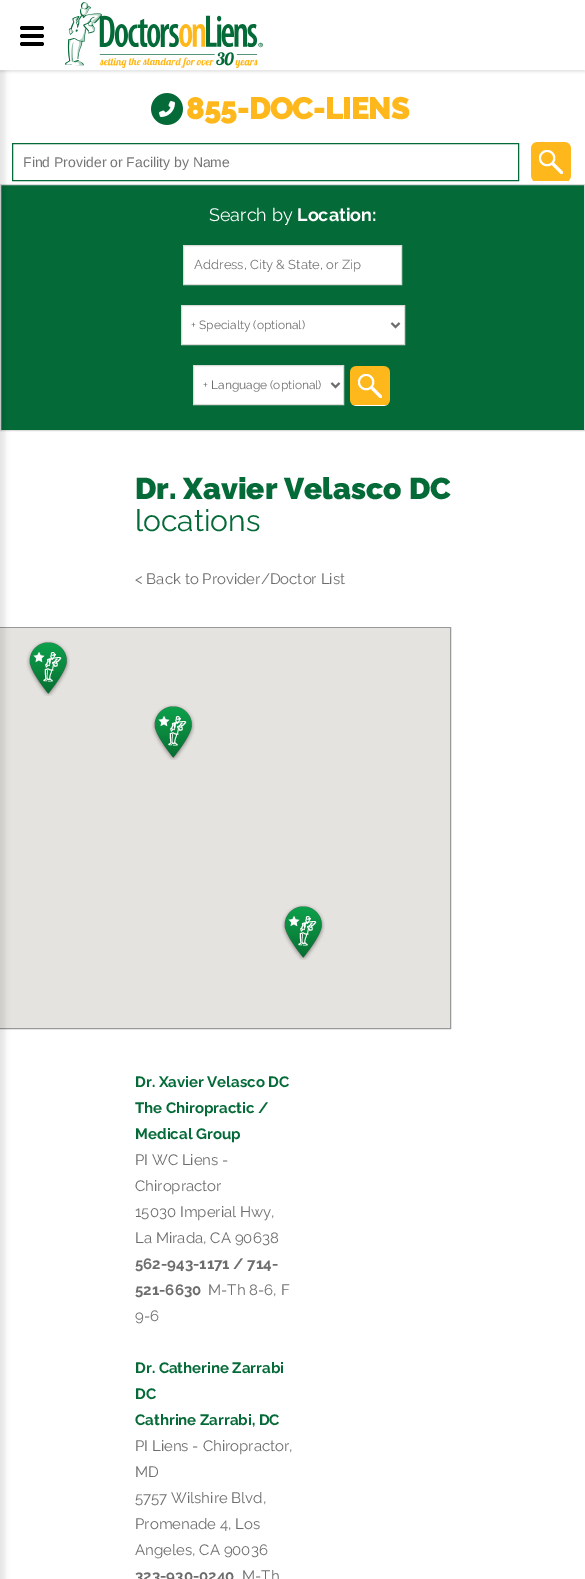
%!PS
<< /PageSize [585 1579] /PageUsesTransparency true >> setpagedevice
/m/moveto load def
/l/rlineto load def
/c/rcurveto load def
/z/closepath load def
/f/fill load def
/s/stroke load def
/q/gsave load def
/Q_/grestore load def
/w/setlinewidth load def
/C { dup -16 bitshift 255 div exch dup -8 bitshift 255 and 255 div exch 255 and 255 div setrgbcolor } def
/F { [ exch dup neg 0 0 3 -1 roll 0 0 ] selectfont } def
/T { moveto show } def
/R { rectfill } def
/A { dup .setfillconstantalpha .setstrokeconstantalpha } def
/Q { 5 dict begin { /r /h /w /y /x } { exch def } forall
  x r add y moveto x w add y 2 copy h add r arct x w add y h add x 1 index r arct
  x y h add x y r arct x y 2 copy exch w add exch r arct closepath end } def
/S { 12 dict begin { /a /b /q /h /w /y /x } { exch def } forall gsave /was 0 def
  9 -2 -9 { dup b mul 4 div /e exch def 1 sub .425 mul 2.718 exch exp 1 add a .99 .min exch div /now exch def
    1 1 now sub 1 was sub div sub A /was now def
    w h .min e 2 mul add 0 gt { x e sub y e sub w e 2 mul add h e 2 mul add
      q e add b .6 mul add w h .min 2 div e add .min 0 .max Q fill } if } for grestore end } def
/I { 5 dict begin { /h /w /y /x /name } { exch def } forall
  gsave x y translate w h scale
  w h 8 [w 0 0 h 0 0] name (r) file false 3 colorimage grestore end } def
0 .pushpdf14devicefilter
0 1579 translate 1 -1 scale
4 setmiterlimit
16#FFFFFF C
0 0 585 1579 R
16#046A38 C
12.5 143.5 506 37 rectstroke
.5 184.5 m 584 0 l 0 246 l -584 0 l z q f Q_
16#DADBDC C
s
16#999999 C
-.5 627.5 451 401 rectstroke
16#E5E3DF C
0 628 450 400 R
16#000000 C
-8 -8 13 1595 0 2.5 .1 S
0 2 585 70 0 1 .1 S
16#FFFFFF C
0 0 585 70 R
16#000000 C
42 38 m -20 0 l -1 0 -2 -1 -2 -2 c 0 -1 1 -2 2 -2 c 20 0 l 1 0 2 1 2 2 c 0 1 -1 2 -2 2 c z 42 46 m -20 0 l -1 0 -2 -1 -2 -2 c 0 -1 1 -2 2 -2 c 20 0 l 1 0 2 1 2 2 c 0 1 -1 2 -2 2 c z 42 30 m -20 0 l -1 0 -2 -1 -2 -2 c 0 -1 1 -2 2 -2 c 20 0 l 1 0 2 1 2 2 c 0 1 -1 2 -2 2 c z f
(1.rgb) 65 2 198 66 I
(2.rgb) 151 93 32 32 I
/Raleway-Black 31 F
16#FFB81C C
186 119 m -1 0 (855-DOC-LIENS) ashow
/LiberationSans-Regular 14 F
16#757575 C
(Find Provider or Facility by Name) 23 167 T
(3.rgb) 531 142 40 39 I
/Raleway-Regular 18 F
16#FFFFFF C
(Search by) 209 221 T
/Raleway-Bold 18 F
(Location:) 297 221 T
183.5 245.5 m 218 0 l 0 39 l -218 0 l z q f Q_
16#DBDBDB C
s
/Raleway-Regular 13 F
16#757575 C
(Address, City & State, or Zip) 194 269 T
16#FFFFFF C
181.5 305.5 m 223 0 l 0 39 l -223 0 l z q f Q_
16#DBDBDB C
s
16#6D6D6D C
2 w
391.5 323 m 4 4 l 4 -4 l s
/Raleway-Regular 12 F
(+ Specialty \(optional\)) 191 329 T
16#FFFFFF C
193.5 365.5 m 150 0 l 0 39 l -150 0 l z q f Q_
16#DBDBDB C
1 w
s
16#6D6D6D C
2 w
331.5 383 m 4 4 l 4 -4 l s
(+ Language \(optional\)) 203 389 T
(4.rgb) 350 366 40 40 I
/Raleway-Black 30 F
16#046A38 C
(Dr. Xavier Velasco DC) 135 499 T
/Raleway-Regular 30 F
(locations) 135 531 T
/Raleway-Regular 15 F
16#6D6D6D C
(< Back to Provider/Doctor List) 135 584 T
(5.rgb) 26 640 44 56 I
(5.rgb) 151 704 44 56 I
(5.rgb) 281 904 44 56 I
/Raleway-Bold 15 F
16#046A38 C
(Dr. Xavier Velasco DC) 135 1087 T
(The Chiropractic /) 135 1113 T
(Medical Group) 135 1139 T
/Raleway-Regular 15 F
16#6D6D6D C
(PI WC Liens -) 135 1165 T
(Chiropractor) 135 1191 T
(15030 Imperial Hwy,) 135 1217 T
(La Mirada, CA 90638) 135 1243 T
/Raleway-Bold 15 F
(562-943-1171 / 714-) 135 1269 T
(521-6630) 135 1295 T
/Raleway-Regular 15 F
(M-Th 8-6, F) 208 1295 T
(9-6) 135 1321 T
/Raleway-Bold 15 F
16#046A38 C
(Dr. Catherine Zarrabi) 135 1373 T
(DC) 135 1399 T
(Cathrine Zarrabi, DC) 135 1425 T
/Raleway-Regular 15 F
16#6D6D6D C
(PI Liens - Chiropractor,) 135 1451 T
(MD) 135 1477 T
(5757 Wilshire Blvd,) 135 1503 T
(Promenade 4, Los) 135 1529 T
(Angeles, CA 90036) 135 1555 T
/Raleway-Bold 15 F
(323-930-0240) 135 1581 T
/Raleway-Regular 15 F
(M-Th) 242 1581 T
.poppdf14devicefilter showpage
